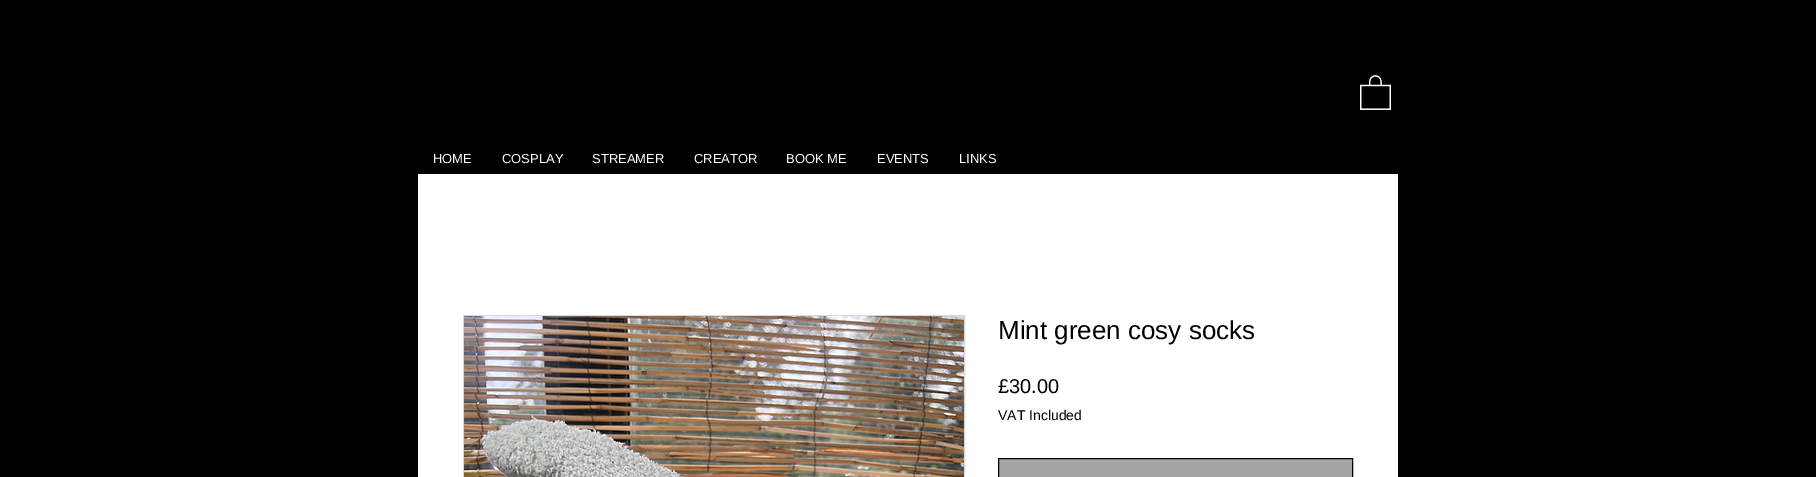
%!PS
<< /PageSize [1816 477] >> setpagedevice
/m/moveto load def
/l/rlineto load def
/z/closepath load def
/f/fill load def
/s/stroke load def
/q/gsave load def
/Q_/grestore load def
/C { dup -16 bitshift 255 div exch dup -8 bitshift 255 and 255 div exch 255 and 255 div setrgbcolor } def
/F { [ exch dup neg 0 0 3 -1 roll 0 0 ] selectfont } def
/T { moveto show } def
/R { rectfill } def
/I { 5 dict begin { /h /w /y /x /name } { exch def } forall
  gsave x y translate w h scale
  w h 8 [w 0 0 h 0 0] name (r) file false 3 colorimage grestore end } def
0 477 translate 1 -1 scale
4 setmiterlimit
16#000000 C
0 0 1816 477 R
(1.rgb) 1360 75 31 35 I
/LiberationSans-Regular 13 F
16#FFFFFF C
(HOME) 433 163 T
(COSPLAY) 502 163 T
(STREAMER) 592 163 T
(CREATOR) 694 163 T
(BOOK ME) 786 163 T
(EVENTS) 877 163 T
(LINKS) 959 163 T
418 174 980 303 R
16#D8D8D8 C
463.5 315.5 501 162 rectstroke
(2.rgb) 464 316 500 161 I
/LiberationSans-Regular 26 F
16#000000 C
(Mint green cosy socks) 998 339 T
/LiberationSans-Regular 20 F
(£30.00) 998 393 T
/LiberationSans-Regular 14 F
(VAT Included) 998 420 T
16#A5A5A5 C
998.5 458.5 m 354 0 l 0 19 l -354 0 l z q f Q_
16#000000 C
s
showpage
